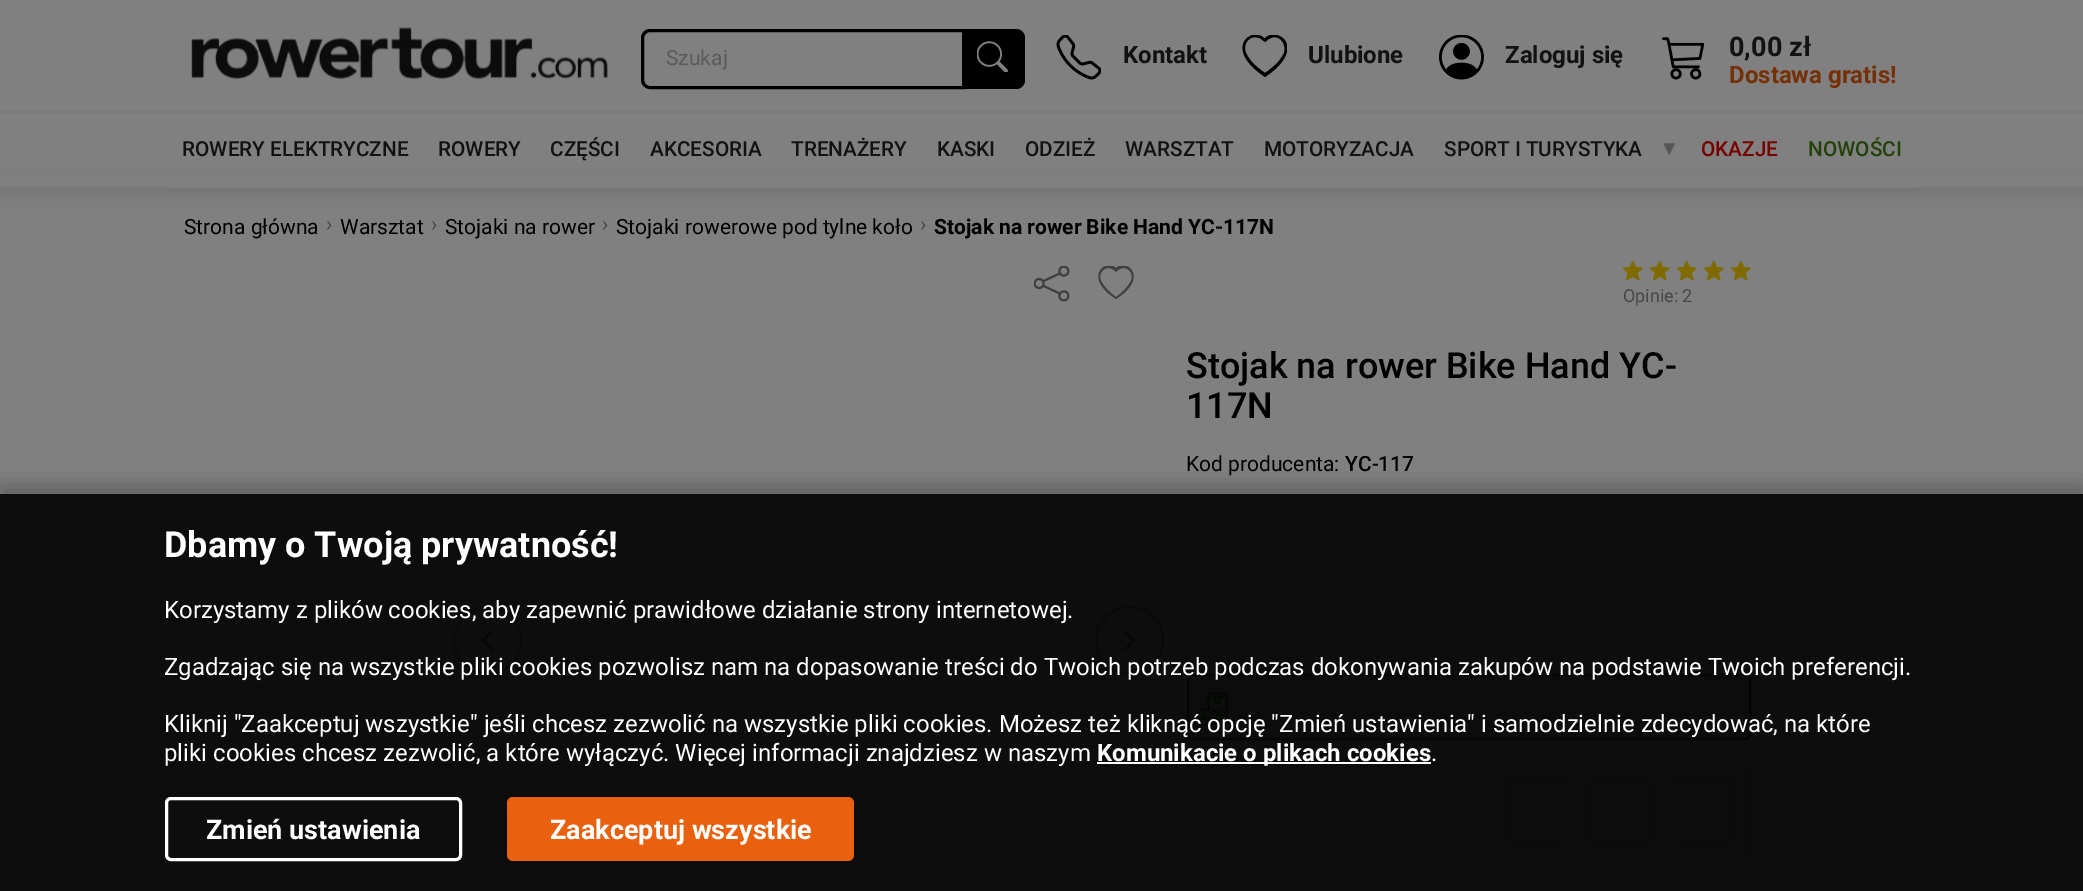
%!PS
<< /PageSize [2083 891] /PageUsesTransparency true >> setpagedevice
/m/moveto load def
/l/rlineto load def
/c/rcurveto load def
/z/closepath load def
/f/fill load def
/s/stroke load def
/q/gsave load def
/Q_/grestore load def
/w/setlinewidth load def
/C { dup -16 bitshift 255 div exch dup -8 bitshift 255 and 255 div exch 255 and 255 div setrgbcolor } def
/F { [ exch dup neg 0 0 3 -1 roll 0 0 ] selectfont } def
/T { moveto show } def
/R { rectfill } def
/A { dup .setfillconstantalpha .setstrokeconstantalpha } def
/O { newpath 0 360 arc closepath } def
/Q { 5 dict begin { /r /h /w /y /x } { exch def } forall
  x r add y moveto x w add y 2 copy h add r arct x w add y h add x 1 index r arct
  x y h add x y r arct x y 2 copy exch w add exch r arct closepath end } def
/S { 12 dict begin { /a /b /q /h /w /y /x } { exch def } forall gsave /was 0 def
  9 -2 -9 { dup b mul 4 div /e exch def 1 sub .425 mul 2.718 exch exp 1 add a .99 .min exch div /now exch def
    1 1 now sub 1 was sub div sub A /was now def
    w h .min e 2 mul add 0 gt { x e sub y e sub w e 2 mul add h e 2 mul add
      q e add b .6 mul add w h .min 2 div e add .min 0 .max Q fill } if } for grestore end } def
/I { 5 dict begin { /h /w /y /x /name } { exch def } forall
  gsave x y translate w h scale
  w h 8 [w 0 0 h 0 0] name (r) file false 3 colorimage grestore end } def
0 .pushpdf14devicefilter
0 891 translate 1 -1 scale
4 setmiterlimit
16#808080 C
0 0 2083 891 R
16#7B7B7B C
0 111 2083 2 R
(1.rgb) 191 27 417 52 I
16#000000 C
942 29 83 60 9 Q f
16#808080 C
650 30.5 m 313.5 0 l 0 57 l -313.5 0 l -4 0 -7.5 -3.5 -7.5 -7.5 c 0 -42 l 0 -4 3.5 -7.5 7.5 -7.5 c z q f Q_
16#000000 C
3 w
s
/Roboto-Regular 21 F
16#5B5B5B C
(Szukaj) 666 65 T
(2.rgb) 977 41 31 31 I
(3.rgb) 1056 35 45 45 I
/Roboto-Bold 24 F
16#121212 C
(Kontakt) 1123 63 T
q
1242 35 45 45 rectclip
16#000000 C
1265 42 m -4 -3 l -10 -6 -19 4 -15 14 c 4 9 12 15 19 20 c 7 -5 15 -11 19 -20 c 3 -10 -6 -20 -15 -14 c z 1265 77 m -43 -29 -13 -51 -1 -39 c 1 0 l 13 -12 43 10 0 39 c z f
Q_
(Ulubione) 1308 63 T
(4.rgb) 1439 35 45 45 I
(Zaloguj się) 1505 63 T
(5.rgb) 1662 37 43 43 I
/Roboto-Bold 27 F
(0,00 zł) 1729 56 T
/Roboto-Bold 24 F
16#753007 C
(Dostawa gratis!) 1729 83 T
16#000000 C
0 179 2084 15 0 6 .1 S
16#7B7B7B C
0 186 2083 2 R
16#808080 C
167 186 1750 2 R
/Roboto-Medium 20.75 F
16#121212 C
(ROWERY ELEKTRYCZNE) 182 156 T
(ROWERY) 438 156 T
(CZĘŚCI) 550 156 T
(AKCESORIA) 650 156 T
(TRENAŻERY) 791 156 T
(KASKI) 937 156 T
(ODZIEŻ) 1025 156 T
(WARSZTAT) 1125 156 T
(MOTORYZACJA) 1264 156 T
(SPORT I TURYSTYKA) 1444 156 T
/LiberationSans-Regular 20.75 F
16#565555 C
(▼) 1659 155 T
/Roboto-Medium 20.75 F
16#760000 C
(OKAZJE) 1701 156 T
16#22420A C
(NOWOŚCI) 1808 156 T
16#808080 C
0 174 2083 12 R
/Roboto-Regular 21 F
16#000000 C
(Strona główna) 184 234 T
16#474747 C
(›) 326 231 T
16#000000 C
(Warsztat) 340 234 T
16#474747 C
(›) 431 231 T
16#000000 C
(Stojaki na rower) 445 234 T
16#474747 C
(›) 602 231 T
16#000000 C
(Stojaki rowerowe pod tylne koło) 616 234 T
16#474747 C
(›) 920 231 T
/Roboto-Bold 21 F
16#000000 C
(Stojak na rower Bike Hand YC-117N) 934 234 T
(6.rgb) 1034 266 36 36 I
q
1098 266 36 36 rectclip
16#3F3F3F C
1116 272 m -8 -9 -19 -1 -15 9 c 3 6 9 12 15 16 c 6 -4 12 -10 15 -16 c 4 -10 -7 -18 -15 -9 c z 1116 299 m -34 -22 -10 -41 0 -31 c 10 -10 34 9 0 31 c z f
Q_
16#404040 C
1.5 w
1 setlinecap
1 setlinejoin
492 631.5 m -9 9 l 9 9 l s
16#5F5F5F C
2 w
0 setlinecap
0 setlinejoin
487.5 640.5 33.5 O s
16#404040 C
1.5 w
1 setlinecap
1 setlinejoin
1125 649.5 m 9 -9 l -9 -9 l s
16#5F5F5F C
2 w
0 setlinecap
0 setlinejoin
1129.5 640.5 33.5 O s
(7.rgb) 1623 261 20 20 I
(7.rgb) 1650 261 20 20 I
(7.rgb) 1677 261 20 20 I
(7.rgb) 1704 261 20 20 I
(7.rgb) 1731 261 20 20 I
/Roboto-Regular 18 F
16#474747 C
(Opinie: 2) 1623 302 T
/Roboto-Medium 36 F
16#000000 C
(Stojak na rower Bike Hand YC-) 1186 378 T
(117N) 1186 418 T
/Roboto-Regular 21 F
(Kod producenta:) 1186 471 T
/Roboto-Medium 21 F
(YC-117) 1345 471 T
16#707070 C
1187 531 564 2 R
16#797C78 C
1187 674 564 66 6 Q f
(8.rgb) 1201 692 29 29 I
16#054400 C
1188 675 562 64 5 Q s
16#7C7D7E C
1188 763 562 96 5 Q q f Q_
16#707070 C
s
1507 780 61 61 5 Q s
1590 780 61 61 5 Q s
1672 780 61 61 5 Q s
1187 882 564 2 R
q
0 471 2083 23 rectclip
16#000000 C
0 486 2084 398 0 11 .25 S
Q_
0.9 A
16#000000 C
0 494 2083 397 R
/Roboto-Bold 36 F
1 A
16#FFFFFF C
(Dbamy o Twoją prywatność!) 164 557 T
/Roboto-Regular 24 F
(Korzystamy z plików cookies, aby zapewnić prawidłowe działanie strony internetowej.) 164 618 T
(Zgadzając się na wszystkie pliki cookies pozwolisz nam na dopasowanie treści do Twoich potrzeb podczas dokonywania zakupów na podstawie Twoich preferencji.) 164 675 T
(Kliknij "Zaakceptuj wszystkie" jeśli chcesz zezwolić na wszystkie pliki cookies. Możesz też kliknąć opcję "Zmień ustawienia" i samodzielnie zdecydować, na które) 164 732 T
(pliki cookies chcesz zezwolić, a które wyłączyć. Więcej informacji znajdziesz w naszym) 164 761 T
1097 762 334 2 R
/Roboto-Bold 24 F
(Komunikacie o plikach cookies) 1097 761 T
/Roboto-Regular 24 F
(.) 1431 761 T
3 w
166.5 798.5 294 61 4.5 Q s
/Roboto-Bold 27 F
(Zmień ustawienia) 206 839 T
16#E9600E C
507 797 347 64 6 Q f
16#FFFFFF C
(Zaakceptuj wszystkie) 550 839 T
.poppdf14devicefilter showpage
